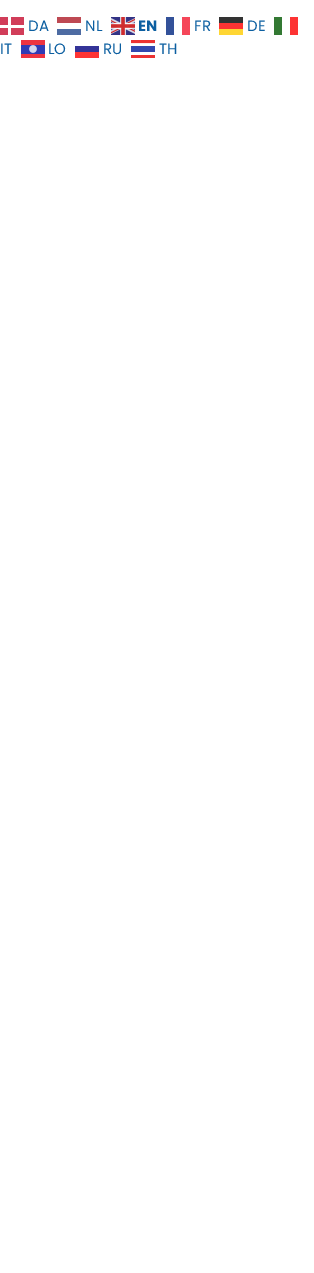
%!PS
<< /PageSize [314 1273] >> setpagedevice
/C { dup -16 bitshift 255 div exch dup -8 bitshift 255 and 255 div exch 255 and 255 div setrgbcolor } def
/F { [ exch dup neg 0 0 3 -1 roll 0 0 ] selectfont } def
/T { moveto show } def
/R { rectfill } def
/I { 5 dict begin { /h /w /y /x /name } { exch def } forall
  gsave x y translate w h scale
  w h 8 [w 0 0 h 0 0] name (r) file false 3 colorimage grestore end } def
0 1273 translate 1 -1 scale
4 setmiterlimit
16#FFFFFF C
0 0 314 1273 R
/Poppins-Regular 15 F
16#0C5FA1 C
(DA) 28 31 T
16#D13D59 C
0 17 24 18 R
16#FFFFFF C
8 17 3 18 R
0 25 24 3 R
16#0C5FA1 C
(NL) 85 31 T
16#4D6BA2 C
57 29 24 6 R
16#BE4953 C
57 17 24 6 R
(1.rgb) 111 17 24 18 I
/Poppins-Bold 15 F
16#0C5FA1 C
(EN) 138 31 T
/Poppins-Regular 15 F
(FR) 194 31 T
16#335199 C
166 17 8 18 R
16#F54659 C
182 17 8 18 R
16#0C5FA1 C
(DE) 247 31 T
16#FFD633 C
219 29 24 6 R
16#333333 C
219 17 24 6 R
16#FF3333 C
219 23 24 6 R
16#0C5FA1 C
(IT) 0 54 T
16#337933 C
274 17 8 18 R
16#FD3333 C
290 17 8 18 R
(2.rgb) 21 40 24 18 I
16#0C5FA1 C
(LO) 48 54 T
(RU) 103 54 T
16#343498 C
75 46 24 6 R
16#FE3434 C
75 52 24 6 R
(3.rgb) 131 40 24 18 I
16#0C5FA1 C
(TH) 159 54 T
showpage
